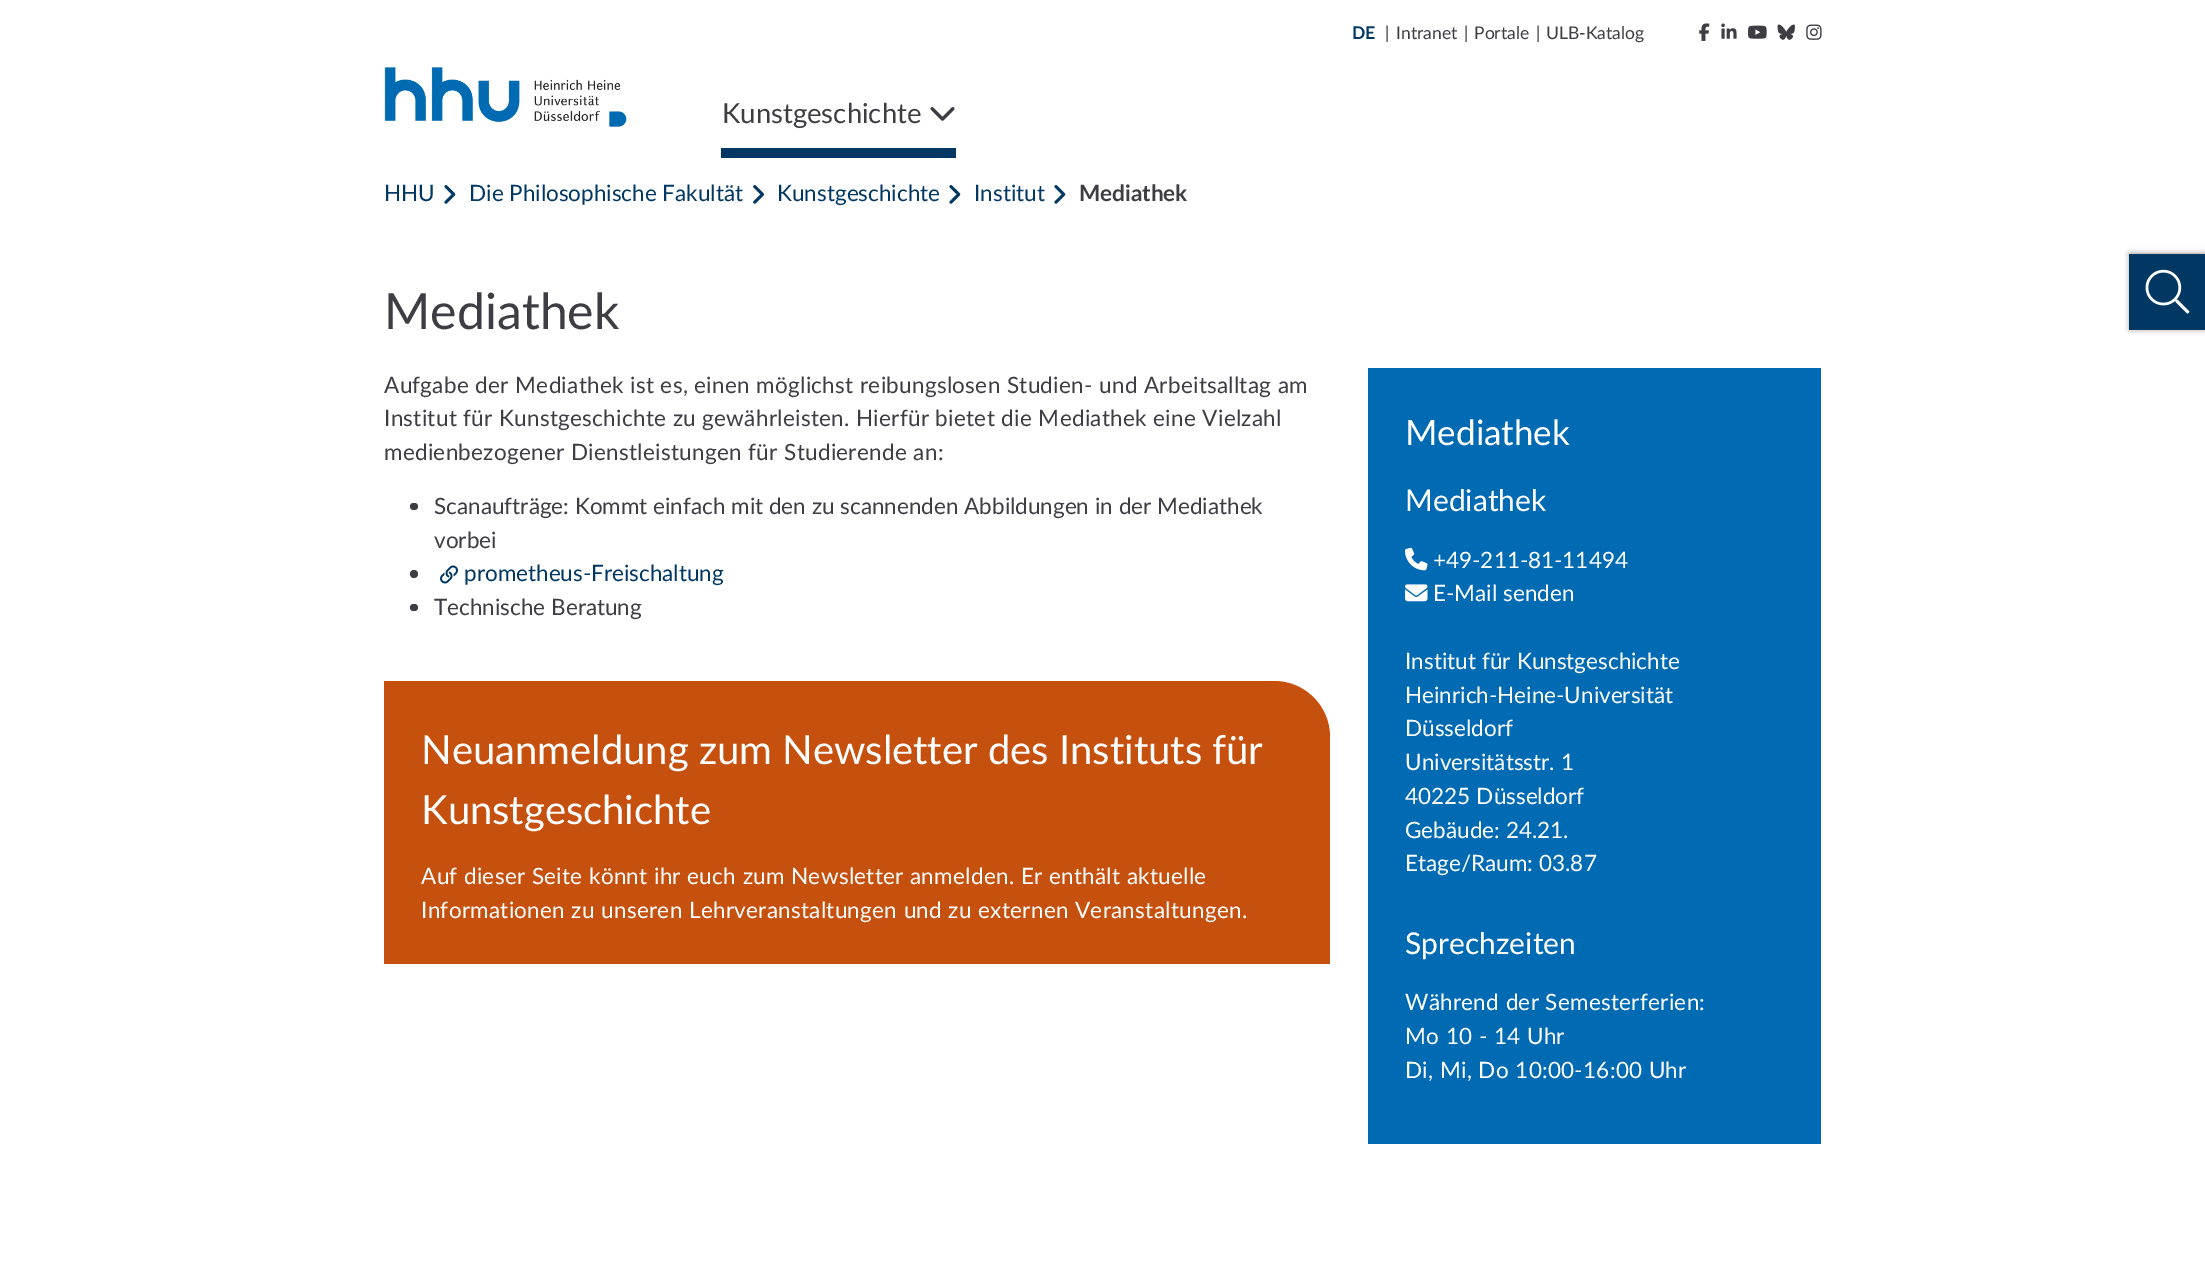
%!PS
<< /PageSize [2205 1261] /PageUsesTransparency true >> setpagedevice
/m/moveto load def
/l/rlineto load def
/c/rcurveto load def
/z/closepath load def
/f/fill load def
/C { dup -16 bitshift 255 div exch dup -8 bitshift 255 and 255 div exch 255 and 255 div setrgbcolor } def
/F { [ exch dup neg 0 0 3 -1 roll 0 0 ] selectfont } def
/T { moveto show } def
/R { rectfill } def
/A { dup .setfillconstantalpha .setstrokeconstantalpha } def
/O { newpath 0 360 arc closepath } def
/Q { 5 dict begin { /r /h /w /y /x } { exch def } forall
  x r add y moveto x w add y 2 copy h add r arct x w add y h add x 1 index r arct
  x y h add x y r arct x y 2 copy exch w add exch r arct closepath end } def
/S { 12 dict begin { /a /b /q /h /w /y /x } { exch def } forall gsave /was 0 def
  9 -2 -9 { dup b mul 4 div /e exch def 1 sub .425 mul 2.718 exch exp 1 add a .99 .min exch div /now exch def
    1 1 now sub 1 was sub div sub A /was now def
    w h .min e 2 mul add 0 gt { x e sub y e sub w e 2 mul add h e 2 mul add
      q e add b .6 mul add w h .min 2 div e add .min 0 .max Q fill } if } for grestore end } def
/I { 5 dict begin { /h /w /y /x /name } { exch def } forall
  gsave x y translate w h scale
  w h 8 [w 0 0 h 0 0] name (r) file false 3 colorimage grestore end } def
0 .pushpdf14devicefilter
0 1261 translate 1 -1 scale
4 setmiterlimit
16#FFFFFF C
0 0 2205 1261 R
/Lato-Bold 17.5 F
16#003863 C
(DE) 1352 39 T
/Lato-Regular 17.5 F
16#3D3D43 C
(|) 1385 39 T
(Intranet) 1396 39 T
(|) 1464 39 T
(Portale) 1474 39 T
(|) 1536 39 T
(ULB-Katalog) 1546 39 T
(1.rgb) 1699 23 11 18 I
(2.rgb) 1721 23 16 16 I
(3.rgb) 1748 25 19 14 I
(4.rgb) 1777 24 18 16 I
(5.rgb) 1806 24 16 16 I
(6.rgb) 384 67 243 60 I
16#003863 C
721 148 235 10 R
/Lato-Regular 27.5 F
16#3D3D43 C
(Kunstgeschichte) 722 123 T
(7.rgb) 930 107 25 14 I
/Lato-Regular 22.5 F
16#003863 C
(HHU) 384 201 T
(8.rgb) 444 185 12 19 I
(Die Philosophische Fakultät) 469 201 T
(9.rgb) 753 185 11 19 I
(Kunstgeschichte) 777 201 T
(8.rgb) 949 185 12 19 I
(Institut) 974 201 T
(8.rgb) 1054 185 12 19 I
/Lato-Bold 22.5 F
16#3D3D43 C
(Mediathek) 1079 201 T
/Lato-Regular 50 F
(Mediathek) 384 329 T
/Lato-Regular 22.5 F
384 393 m .4 0 32 .27 0 (Aufgabe der Mediathek ist es, einen möglichst reibungslosen Studien- und Arbeitsalltag am) awidthshow
384 426 m .4 0 32 .27 0 (Institut für Kunstgeschichte zu gewährleisten. Hierfür bietet die Mediathek eine Vielzahl) awidthshow
384 460 m .5 0 32 .27 0 (medienbezogener Dienstleistungen für Studierende an:) awidthshow
410 503 8 7 3.5 Q f
(Scanaufträge: Kommt einfach mit den zu scannenden Abbildungen in der Mediathek) 434 514 T
(vorbei) 434 548 T
414 574 4 O f
(10.rgb) 440 565 18 19 I
16#003863 C
(prometheus-Freischaltung) 464 581 T
16#3D3D43 C
410 604 8 7 3.5 Q f
(Technische Beratung) 434 615 T
16#C6500D C
384 681 m 890 0 l 31 0 56 25 56 56 c 0 227 l -946 0 l z f
/Lato-Regular 40 F
16#FFFFFF C
(Neuanmeldung zum Newsletter des Instituts für) 421 764 T
(Kunstgeschichte) 421 824 T
/Lato-Regular 22.5 F
421 884 m .4 0 32 .27 0 (Auf dieser Seite könnt ihr euch zum Newsletter anmelden. Er enthält aktuelle) awidthshow
421 918 m .4 0 32 .27 0 (Informationen zu unseren Lehrveranstaltungen und zu externen Veranstaltungen.) awidthshow
16#006AB3 C
1368 368 453 776 R
/Lato-Regular 35 F
16#FFFFFF C
(Mediathek) 1405 445 T
/Lato-Regular 30 F
(Mediathek) 1405 511 T
(11.rgb) 1405 547 23 24 I
/Lato-Regular 22.5 F
(+49-211-81-11494) 1433 568 T
(12.rgb) 1405 584 23 18 I
1433 601 m .4 0 32 (E-Mail senden) widthshow
1405 669 m .4 0 32 (Institut für Kunstgeschichte) widthshow
(Heinrich-Heine-Universität) 1405 703 T
(Düsseldorf) 1405 736 T
1405 770 m .4 0 32 (Universitätsstr. 1) widthshow
1405 804 m .4 0 32 (40225 Düsseldorf) widthshow
1405 838 m .4 0 32 (Gebäude: 24.21.) widthshow
1405 871 m .4 0 32 (Etage/Raum: 03.87) widthshow
/Lato-Regular 30 F
(Sprechzeiten) 1405 954 T
/Lato-Regular 22.5 F
1405 1010 m .4 0 32 .27 0 (Während der Semesterferien:) awidthshow
1405 1044 m .4 0 32 .27 0 (Mo 10 - 14 Uhr) awidthshow
1405 1078 m .4 0 32 .27 0 (Di, Mi, Do 10:00-16:00 Uhr) awidthshow
16#000000 C
2130 254 75 75 0 3 .5 S
16#003863 C
2129 254 76 76 R
(13.rgb) 2145 269 45 45 I
.poppdf14devicefilter showpage
